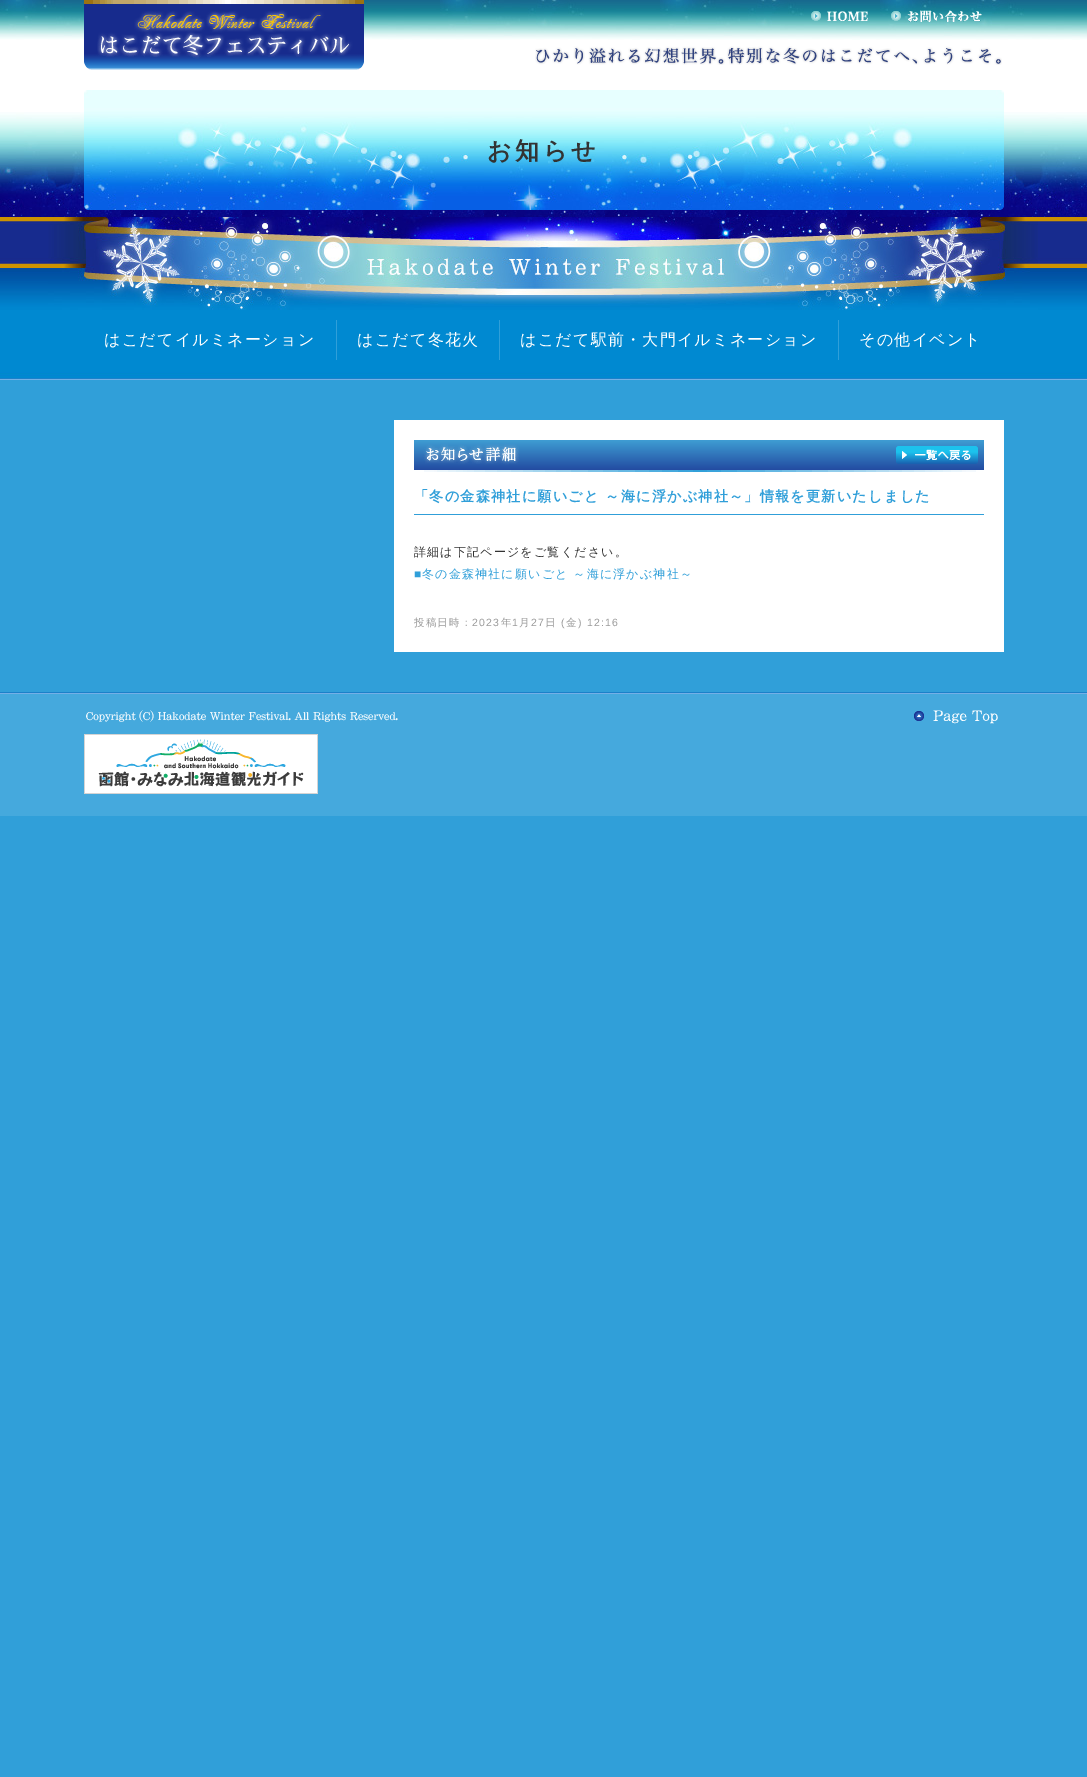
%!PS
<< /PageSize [1087 1777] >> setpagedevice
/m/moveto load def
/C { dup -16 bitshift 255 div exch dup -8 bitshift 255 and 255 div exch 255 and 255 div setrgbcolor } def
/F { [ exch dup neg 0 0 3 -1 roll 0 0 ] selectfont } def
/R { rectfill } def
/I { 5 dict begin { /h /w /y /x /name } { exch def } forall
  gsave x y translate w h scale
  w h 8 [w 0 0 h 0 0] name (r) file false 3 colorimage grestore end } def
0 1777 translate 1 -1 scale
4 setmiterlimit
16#309FD9 C
0 0 1087 1777 R
16#FFFFFF C
0 40 1087 72 R
(1.rgb) 0 0 1087 40 I
(2.rgb) 84 0 280 70 I
(3.rgb) 827 11 41 10 I
(4.rgb) 811 11 10 10 I
(5.rgb) 907 10 75 12 I
(6.rgb) 891 11 10 10 I
(7.rgb) 535 46 467 19 I
(8.rgb) 0 112 1087 105 I
(9.rgb) 84 90 920 120 I
/WenQuanYiZenHei-Bold 24 F
16#333333 C
487 159 m 3.5 0 (お知らせ) ashow
(10.rgb) 0 217 1087 93 I
(11.rgb) 48 217 990 93 I
(12.rgb) 0 310 1087 70 I
16#309FD9 C
336 320 1 40 R
/WenQuanYiZenHei-Medium 16 F
16#FFFFFF C
104 345 m 1.25 0 (はこだてイルミネーション) ashow
16#309FD9 C
499 320 1 40 R
16#FFFFFF C
357 345 m 1.25 0 (はこだて冬花火) ashow
16#309FD9 C
838 320 1 40 R
16#FFFFFF C
520 345 m 1.25 0 (はこだて駅前・大門イルミネーション) ashow
859 345 m 1.25 0 (その他イベント) ashow
394 420 610 232 R
(13.rgb) 414 440 570 32 I
(14.rgb) 896 446 82 18 I
16#309FD9 C
414 514 570 1 R
/WenQuanYiZenHei-Bold 14.15 F
414 501 m 1.2 0 (「冬の金森神社に願いごと ～海に浮かぶ神社～」情報を更新いたしました) ashow
/WenQuanYiZenHei-Medium 12 F
16#333333 C
414 556 m 1.2 0 (詳細は下記ページをご覧ください。) ashow
/LiberationSans-Regular 12 F
16#309FD9 C
414 578 m 1.2 0 (■) ashow
/WenQuanYiZenHei-Medium 12 F
422 578 m 1.2 0 (冬の金森神社に願いごと ～海に浮かぶ神社～) ashow
/WenQuanYiZenHei-Medium 10.5 F
16#999999 C
414 626 m 1.2 0 (投稿日時：) ashow
/LiberationSans-Regular 10.5 F
472 626 m 1.2 0 (2023) ashow
/WenQuanYiZenHei-Medium 10.5 F
501 626 m 1.2 0 (年) ashow
/LiberationSans-Regular 10.5 F
512 626 m 1.2 0 (1) ashow
/WenQuanYiZenHei-Medium 10.5 F
519 626 m 1.2 0 (月) ashow
/LiberationSans-Regular 10.5 F
531 626 m 1.2 0 (27) ashow
/WenQuanYiZenHei-Medium 10.5 F
545 626 m 1.2 0 (日) ashow
/LiberationSans-Regular 10.5 F
561 626 m 1.2 0 (\() ashow
/WenQuanYiZenHei-Medium 10.5 F
566 626 m 1.2 0 (金) ashow
/LiberationSans-Regular 10.5 F
578 626 m 1.2 0 (\) 12:16) ashow
(15.rgb) 0 692 1087 124 I
(16.rgb) 86 710 312 12 I
(17.rgb) 914 707 87 20 I
(18.rgb) 84 734 234 60 I
showpage
